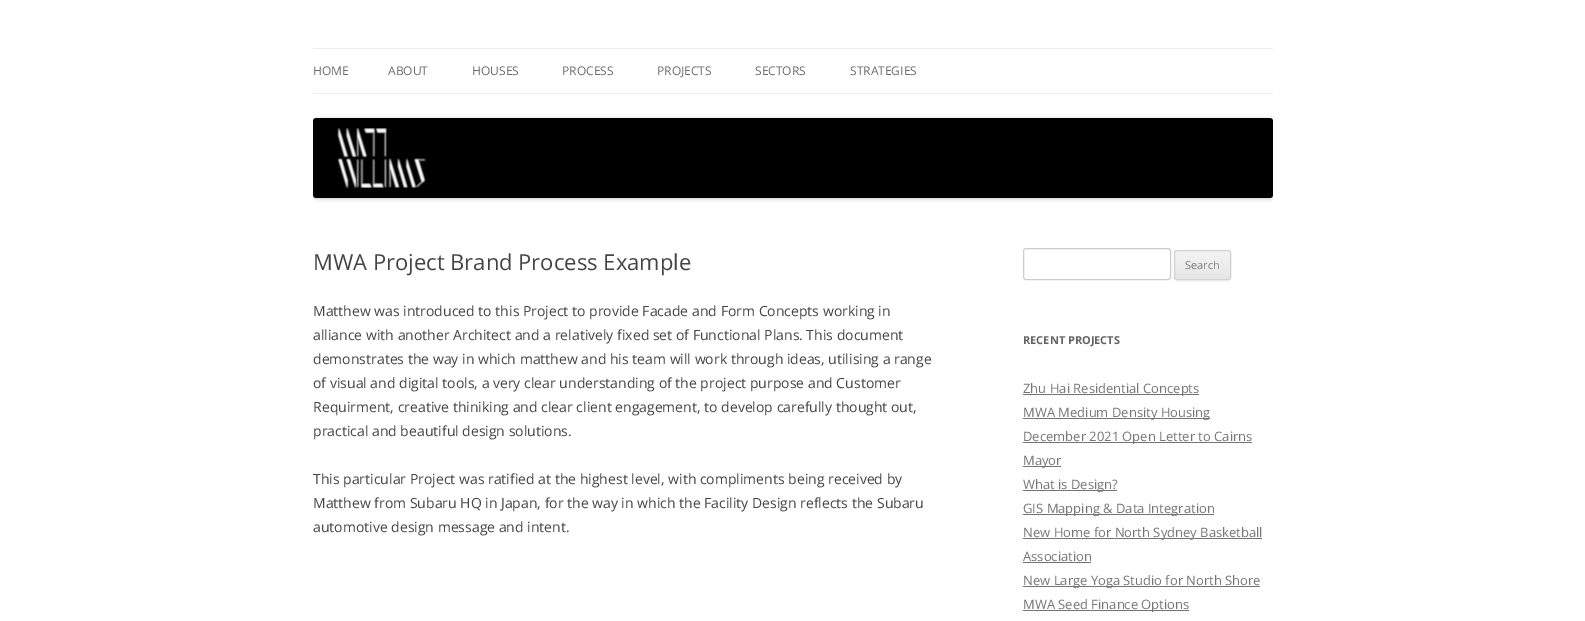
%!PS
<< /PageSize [1585 621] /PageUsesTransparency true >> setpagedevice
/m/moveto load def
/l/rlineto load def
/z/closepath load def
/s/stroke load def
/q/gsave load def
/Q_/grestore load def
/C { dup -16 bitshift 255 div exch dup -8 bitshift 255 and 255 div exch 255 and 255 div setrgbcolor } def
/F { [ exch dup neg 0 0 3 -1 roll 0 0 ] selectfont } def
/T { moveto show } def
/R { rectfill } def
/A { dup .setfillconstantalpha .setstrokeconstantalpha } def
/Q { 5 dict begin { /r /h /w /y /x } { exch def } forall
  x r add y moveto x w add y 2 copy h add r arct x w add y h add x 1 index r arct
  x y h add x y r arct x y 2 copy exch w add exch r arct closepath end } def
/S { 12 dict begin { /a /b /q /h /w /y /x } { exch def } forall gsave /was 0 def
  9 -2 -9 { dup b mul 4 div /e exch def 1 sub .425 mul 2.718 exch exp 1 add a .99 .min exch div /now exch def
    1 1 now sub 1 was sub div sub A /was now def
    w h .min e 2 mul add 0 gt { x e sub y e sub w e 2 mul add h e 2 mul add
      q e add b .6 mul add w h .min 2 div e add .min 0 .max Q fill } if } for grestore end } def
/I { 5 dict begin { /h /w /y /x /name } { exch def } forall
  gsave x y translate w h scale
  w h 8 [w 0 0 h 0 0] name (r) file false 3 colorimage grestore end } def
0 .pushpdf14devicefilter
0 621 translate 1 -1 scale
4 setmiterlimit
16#FFFFFF C
0 0 1585 621 R
16#EDEDED C
313 48 960 1 R
313 93 960 1 R
/OpenSans-Regular 12 F
16#6A6A6A C
(HOME) 313 75 T
(ABOUT) 388 75 T
(HOUSES) 472 75 T
(PROCESS) 562 75 T
(PROJECTS) 657 75 T
(SECTORS) 755 75 T
(STRATEGIES) 850 75 T
q
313 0 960 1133 rectclip
16#000000 C
313 119 960 80 3 2 .2 S
Q_
(1.rgb) 313 118 960 80 I
/OpenSans-Regular 22 F
16#444444 C
(MWA Project Brand Process Example) 313 270 T
/OpenSans-Regular 14 F
(Matthew was introduced to this Project to provide Facade and Form Concepts working in) 313 316 T
(alliance with another Architect and a relatively fixed set of Functional Plans. This document) 313 340 T
(demonstrates the way in which matthew and his team will work through ideas, utilising a range) 313 364 T
(of visual and digital tools, a very clear understanding of the project purpose and Customer) 313 388 T
(Requirment, creative thiniking and clear client engagement, to develop carefully thought out,) 313 412 T
(practical and beautiful design solutions.) 313 436 T
(This particular Project was ratified at the highest level, with compliments being received by) 313 484 T
(Matthew from Subaru HQ in Japan, for the way in which the Facility Design reflects the Subaru) 313 508 T
(automotive design message and intent.) 313 532 T
16#CCCCCC C
1023.5 248.5 147 31 2.5 Q s
16#404040 C
1174 251 57 30 3 1 .1 S
q
1174 250 57 30 3 Q clip newpath
q 1174 251 m 57 0 l 0 28 l -57 0 l z clip newpath
<< /ShadingType 2 /ColorSpace /DeviceRGB /Coords [1203 251 1203 279] /Extend [true true] /Function << /FunctionType 2 /Domain [0 1] /C0 [.957 .957 .957] /C1 [.902 .902 .902] /N 1 >> >> shfill Q_
Q_
16#D2D2D2 C
1174.5 250.5 56 29 2.5 Q s
/OpenSans-Regular 11 F
16#7C7C7C C
(Search) 1185 269 T
/OpenSans-Bold 11 F
16#636363 C
(RECENT PROJECTS) 1023 344 T
16#757575 C
1023 394 176 1 R
/OpenSans-Regular 13 F
(Zhu Hai Residential Concepts) 1023 393 T
1023 418 187 1 R
(MWA Medium Density Housing) 1023 417 T
1023 442 229 1 R
(December 2021 Open Letter to Cairns) 1023 441 T
1023 466 38 1 R
(Mayor) 1023 465 T
1023 490 94 1 R
(What is Design?) 1023 489 T
1023 514 191 1 R
(GIS Mapping & Data Integration) 1023 513 T
1023 538 239 1 R
(New Home for North Sydney Basketball) 1023 537 T
(Association) 1023 561 T
1023 562 68 1 R
1023 586 237 1 R
(New Large Yoga Studio for North Shore) 1023 585 T
1023 610 166 1 R
(MWA Seed Finance Options) 1023 609 T
.poppdf14devicefilter showpage
